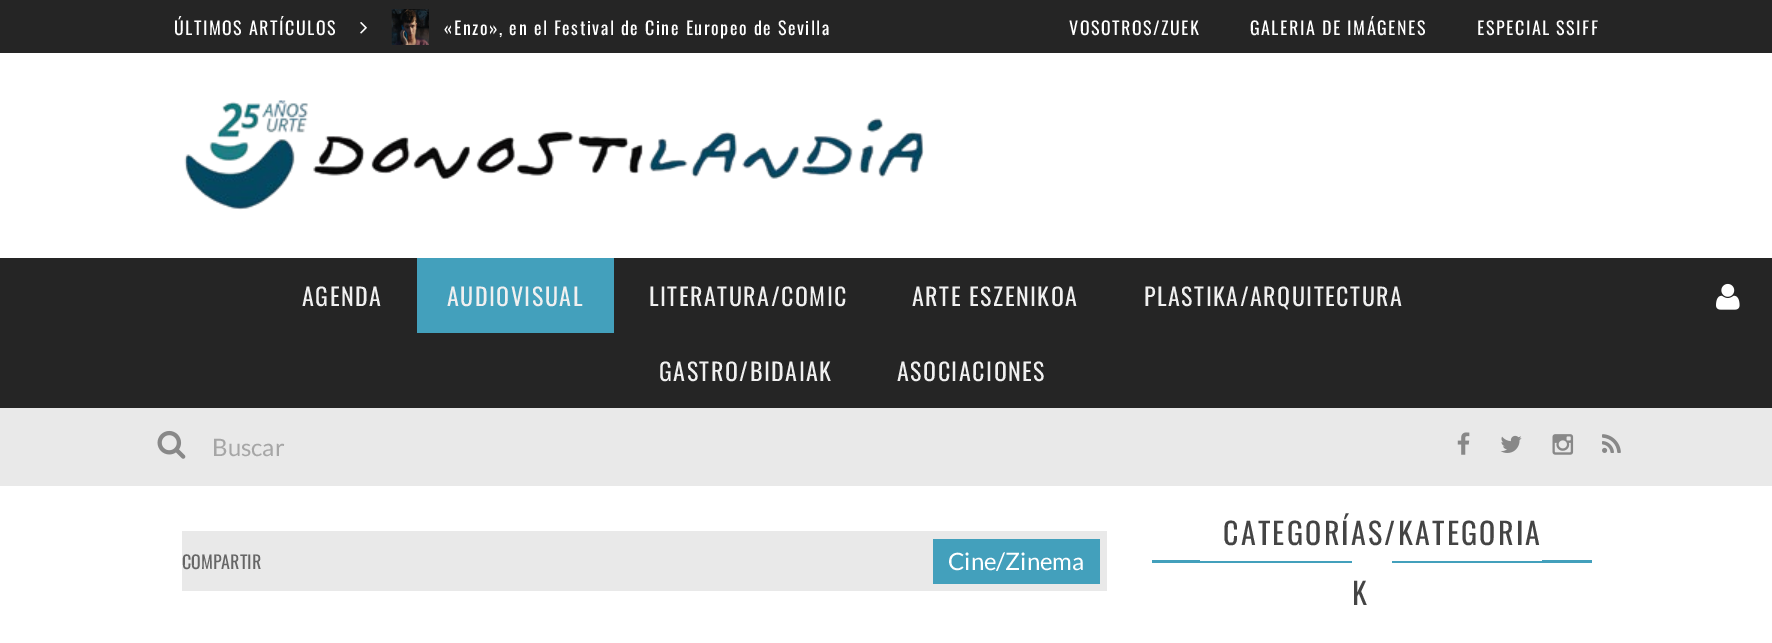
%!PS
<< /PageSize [1772 643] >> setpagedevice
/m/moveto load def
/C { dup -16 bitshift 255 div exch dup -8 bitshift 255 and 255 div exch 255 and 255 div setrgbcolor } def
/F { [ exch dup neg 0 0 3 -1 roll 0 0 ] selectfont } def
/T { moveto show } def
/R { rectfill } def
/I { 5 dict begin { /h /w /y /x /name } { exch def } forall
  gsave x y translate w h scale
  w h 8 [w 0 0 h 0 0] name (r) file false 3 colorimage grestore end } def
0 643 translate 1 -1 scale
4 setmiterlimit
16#FFFFFF C
0 0 1772 643 R
16#252525 C
0 0 1772 53 R
/Oswald-Regular 18 F
16#FFFFFF C
174 35 m 1.5 0 (ÚLTIMOS ARTÍCULOS) ashow
(1.rgb) 360 22 7 12 I
(2.rgb) 391 9 38 36 I
444 35 m 1.5 0 («Enzo», en el Festival de Cine Europeo de Sevilla) ashow
1069 35 m 1.5 0 (VOSOTROS/ZUEK) ashow
1250 35 m 1.5 0 (GALERIA DE IMÁGENES) ashow
1477 35 m 1.5 0 (ESPECIAL SSIFF) ashow
(3.rgb) 184 100 740 110 I
16#252525 C
0 258 1772 150 R
/Oswald-Regular 24 F
16#F0F0F0 C
302 306 m 1.5 0 (AGENDA) ashow
16#43A0BC C
417 258 197 75 R
16#F0F0F0 C
447 306 m 1.5 0 (AUDIOVISUAL) ashow
649 306 m 1.5 0 (LITERATURA/COMIC) ashow
912 306 m 1.5 0 (ARTE ESZENIKOA) ashow
1144 306 m 1.5 0 (PLASTIKA/ARQUITECTURA) ashow
659 381 m 1.5 0 (GASTRO/BIDAIAK) ashow
897 381 m 1.5 0 (ASOCIACIONES) ashow
(4.rgb) 1716 283 24 27 I
16#E9E9E9 C
0 408 1772 78 R
(5.rgb) 157 430 29 29 I
/Lato-Regular 24 F
16#A6A6A6 C
(Buscar) 212 456 T
(6.rgb) 1457 432 13 23 I
(7.rgb) 1500 435 22 18 I
(8.rgb) 1552 434 22 21 I
(9.rgb) 1602 434 19 19 I
16#E9E9E9 C
182 531 925 60 R
/Oswald-Regular 18 F
16#666666 C
(COMPARTIR) 182 569 T
16#43A0BC C
933 539 167 45 R
/Lato-Regular 24 F
16#FFFFFF C
(Cine/Zinema) 948 570 T
/Oswald-Regular 30 F
16#444444 C
1223 545 m 2.25 0 (CATEGORÍAS/KATEGORIA) ashow
16#43A0BC C
1152 560 440 3 R
16#FFFFFF C
1200 560 342 1 R
16#444444 C
1352 605 m 2.25 0 (K) ashow
16#FFFFFF C
1352 561 40 2 R
showpage
